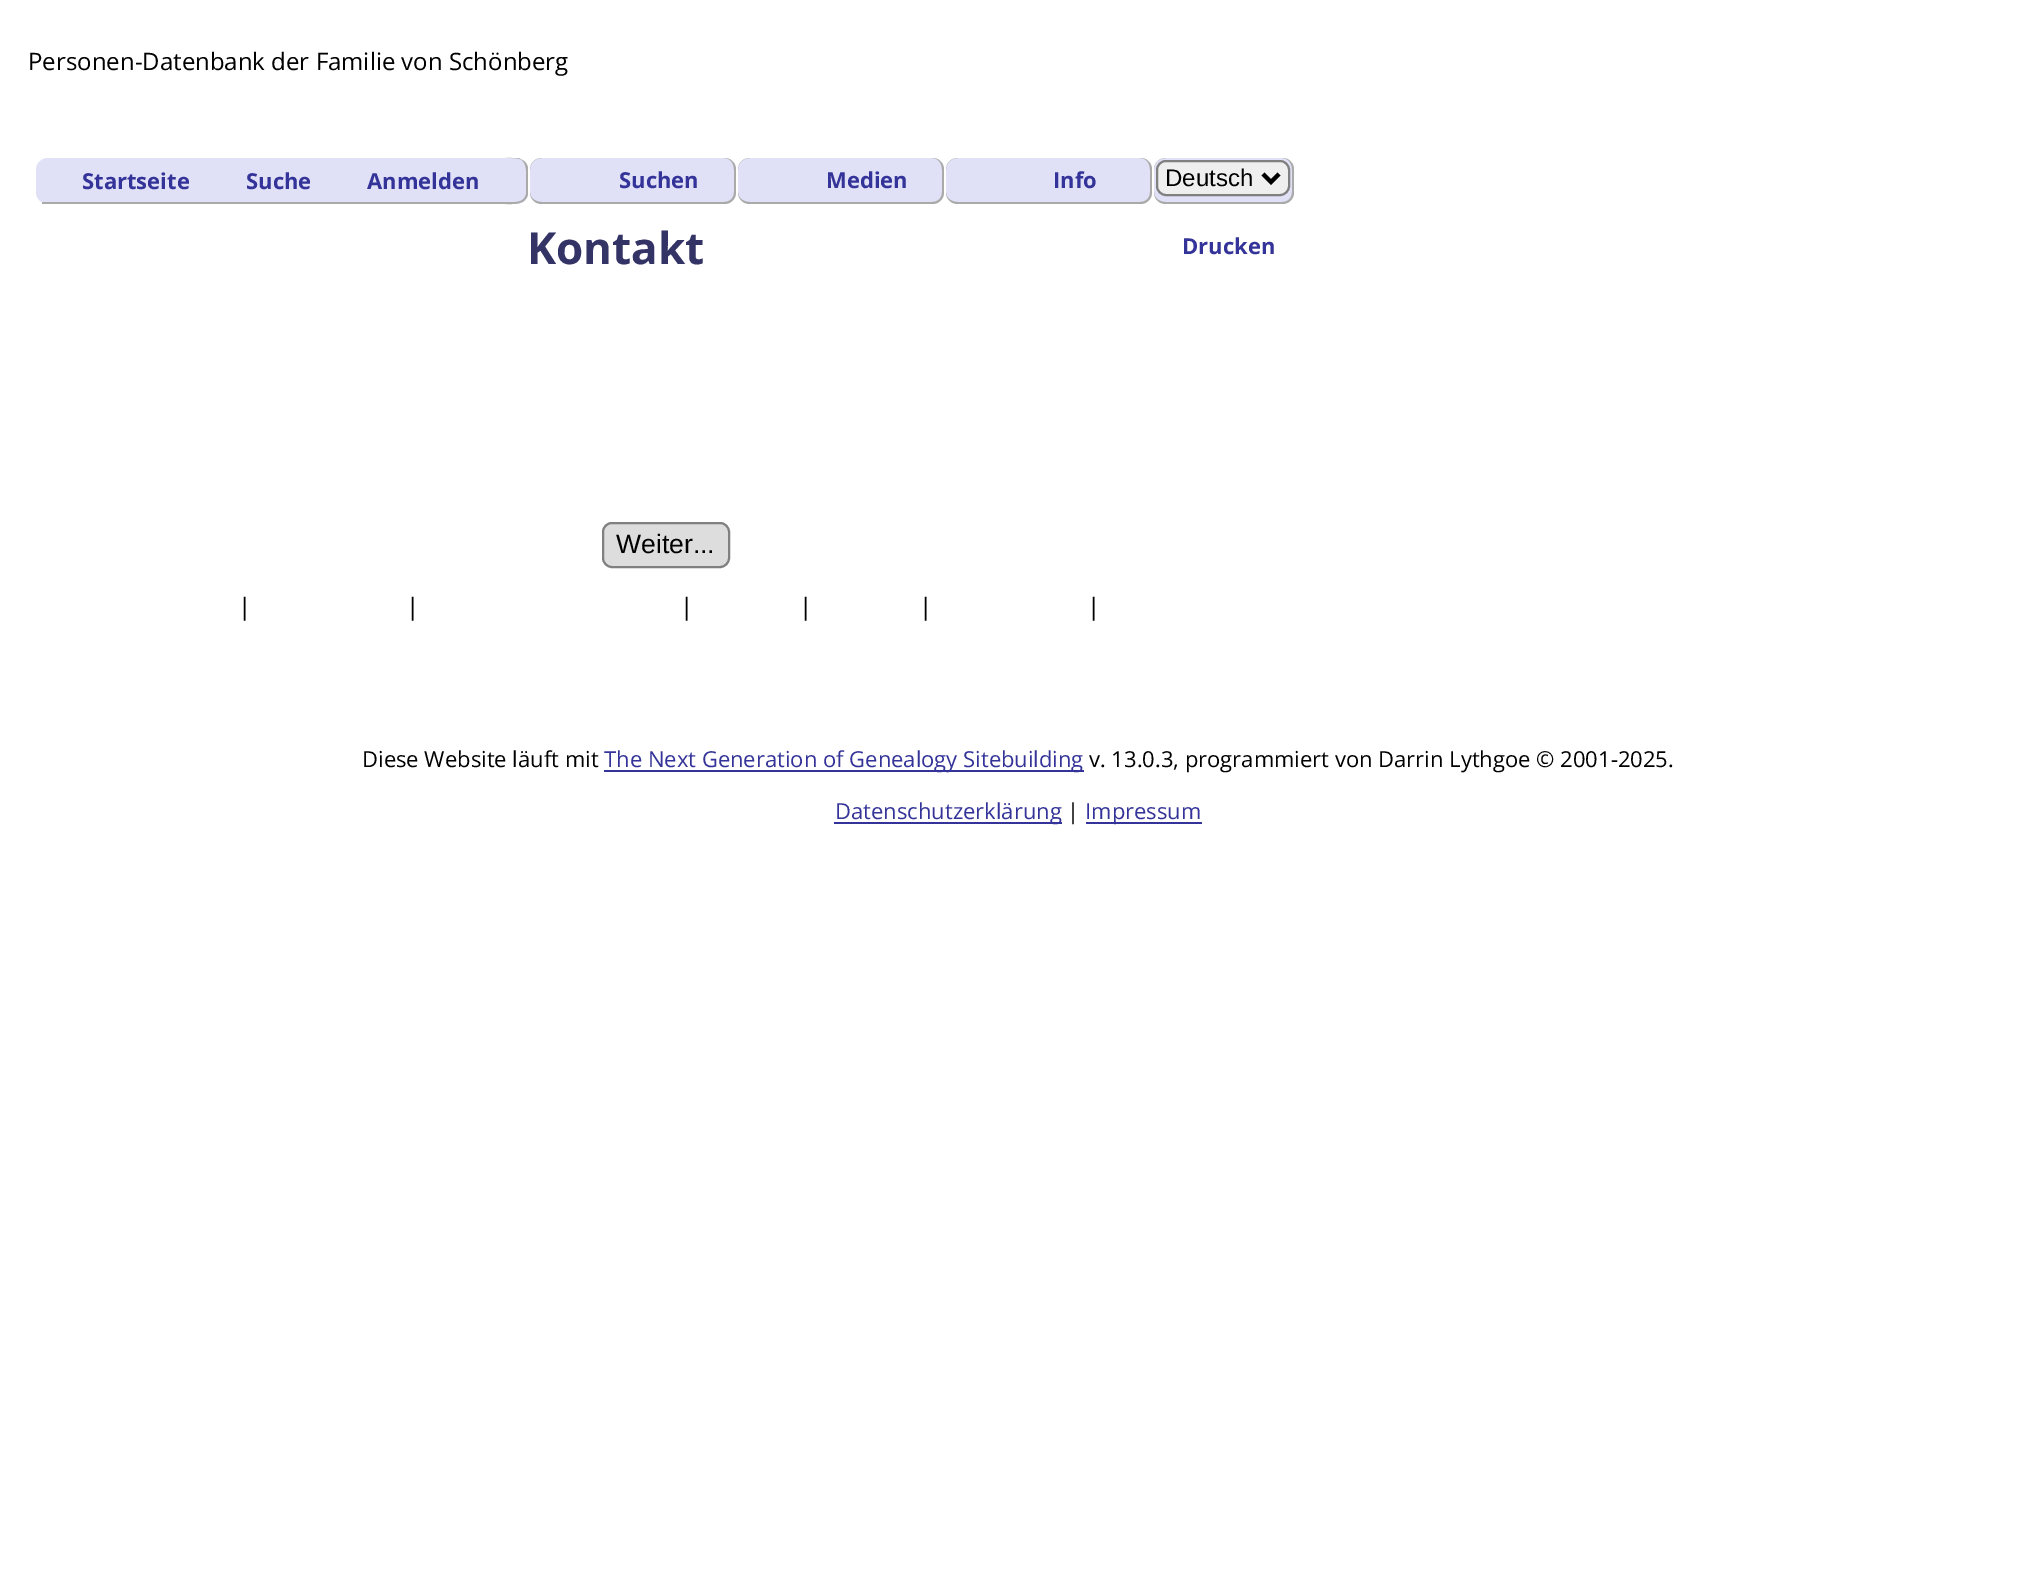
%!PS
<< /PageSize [2036 1590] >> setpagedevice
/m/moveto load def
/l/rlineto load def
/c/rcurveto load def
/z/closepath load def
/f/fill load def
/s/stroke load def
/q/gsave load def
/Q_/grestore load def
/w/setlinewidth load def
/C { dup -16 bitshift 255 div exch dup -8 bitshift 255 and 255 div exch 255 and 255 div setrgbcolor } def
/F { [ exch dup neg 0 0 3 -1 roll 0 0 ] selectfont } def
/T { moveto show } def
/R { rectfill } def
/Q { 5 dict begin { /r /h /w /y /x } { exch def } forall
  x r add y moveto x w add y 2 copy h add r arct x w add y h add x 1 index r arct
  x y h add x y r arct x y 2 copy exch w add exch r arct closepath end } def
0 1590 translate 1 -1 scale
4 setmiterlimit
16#FFFFFF C
0 0 2036 1590 R
/OpenSans-Regular 24 F
16#000000 C
(Personen-Datenbank der Familie von Schönberg) 28 70 T
16#E0E0F7 C
36 158 1260 46 12 Q f
16#AAAAAA C
42 202 464 2 R
/OpenSans-Bold 22 F
16#333399 C
(Startseite) 82 189 T
(Suche) 246 189 T
(Anmelden) 367 189 T
16#FFFFFF C
516 158 780 46 R
16#E0E0F7 C
506 158 m 10 0 l 6.5 0 12 5.5 12 12 c 0 22 l 0 6.5 -5.5 12 -12 12 c -10 0 l z f
16#AAAAAA C
506 158 m 8 0 20 -1 22 10 c 0 26 l -2 11 -14 10 -22 10 c z 506 158 m 12 0 l 10 3 8 16 8 23 c 0 13 l -2 10 -13 8 -20 8 c z eofill
16#E0E0F7 C
530 158 206 46 12 Q f
16#AAAAAA C
542 158 m 182 0 l 7 0 12 5 12 12 c 0 22 l 0 7 -5 12 -12 12 c -182 0 l -7 0 -12 -5 -12 -12 c 0 -22 l 0 -7 5 -12 12 -12 c z 542 158 m 182 0 l 6 0 10 5 10 12 c 0 22 l 0 6 -4 10 -10 10 c -182 0 l -7 0 -12 -4 -12 -10 c 0 -22 l 0 -7 5 -12 12 -12 c z eofill
16#333399 C
(Suchen) 619 188 T
16#E0E0F7 C
738 158 206 46 12 Q f
16#AAAAAA C
750 158 m 182 0 l 7 0 12 5 12 12 c 0 22 l 0 7 -5 12 -12 12 c -182 0 l -7 0 -12 -5 -12 -12 c 0 -22 l 0 -7 5 -12 12 -12 c z 750 158 m 182 0 l 6 0 10 5 10 12 c 0 22 l 0 6 -4 10 -10 10 c -182 0 l -7 0 -12 -4 -12 -10 c 0 -22 l 0 -7 5 -12 12 -12 c z eofill
16#333399 C
(Medien) 826 188 T
16#E0E0F7 C
946 158 206 46 12 Q f
16#AAAAAA C
958 158 m 182 0 l 7 0 12 5 12 12 c 0 22 l 0 7 -5 12 -12 12 c -182 0 l -7 0 -12 -5 -12 -12 c 0 -22 l 0 -7 5 -12 12 -12 c z 958 158 m 182 0 l 6 0 10 5 10 12 c 0 22 l 0 6 -4 10 -10 10 c -182 0 l -7 0 -12 -4 -12 -10 c 0 -22 l 0 -7 5 -12 12 -12 c z eofill
16#333399 C
(Info) 1053 188 T
16#E0E0F7 C
1154 158 140 46 12 Q f
16#AAAAAA C
1166 158 m 116 0 l 7 0 12 5 12 12 c 0 22 l 0 7 -5 12 -12 12 c -116 0 l -7 0 -12 -5 -12 -12 c 0 -22 l 0 -7 5 -12 12 -12 c z 1166 158 m 116 0 l 6 0 10 5 10 12 c 0 22 l 0 6 -4 10 -10 10 c -116 0 l -7 0 -12 -4 -12 -10 c 0 -22 l 0 -7 5 -12 12 -12 c z eofill
16#EFEFEF C
1157 161 132 34 9 Q q f Q_
16#808080 C
2 w
s
16#000000 C
4 w
1263 174 m 8 8 l 8 -8 l s
/LiberationSans-Regular 24 F
(Deutsch) 1165 186 T
/OpenSans-Bold 44 F
16#333366 C
(Kontakt) 527 264 T
/OpenSans-Bold 22 F
16#333399 C
(Drucken) 1182 254 T
16#DDDDDD C
603 523 126 44 9 Q q f Q_
16#808080 C
2 w
s
/LiberationSans-Regular 26.5 F
16#000000 C
(Weiter...) 616 553 T
/OpenSans-Regular 24 F
(|) 238 615 T
(|) 406 615 T
(|) 680 615 T
(|) 799 615 T
(|) 919 615 T
(|) 1087 615 T
/OpenSans-Regular 22 F
(Diese Website läuft mit) 362 767 T
16#333399 C
604 770 480 2 R
(The Next Generation of Genealogy Sitebuilding) 604 767 T
16#000000 C
(v. 13.0.3, programmiert von Darrin Lythgoe © 2001-2025.) 1089 767 T
16#333399 C
834 822 228 2 R
(Datenschutzerklärung) 835 819 T
16#000000 C
(|) 1067 819 T
16#333399 C
1086 822 116 2 R
(Impressum) 1085 819 T
showpage
